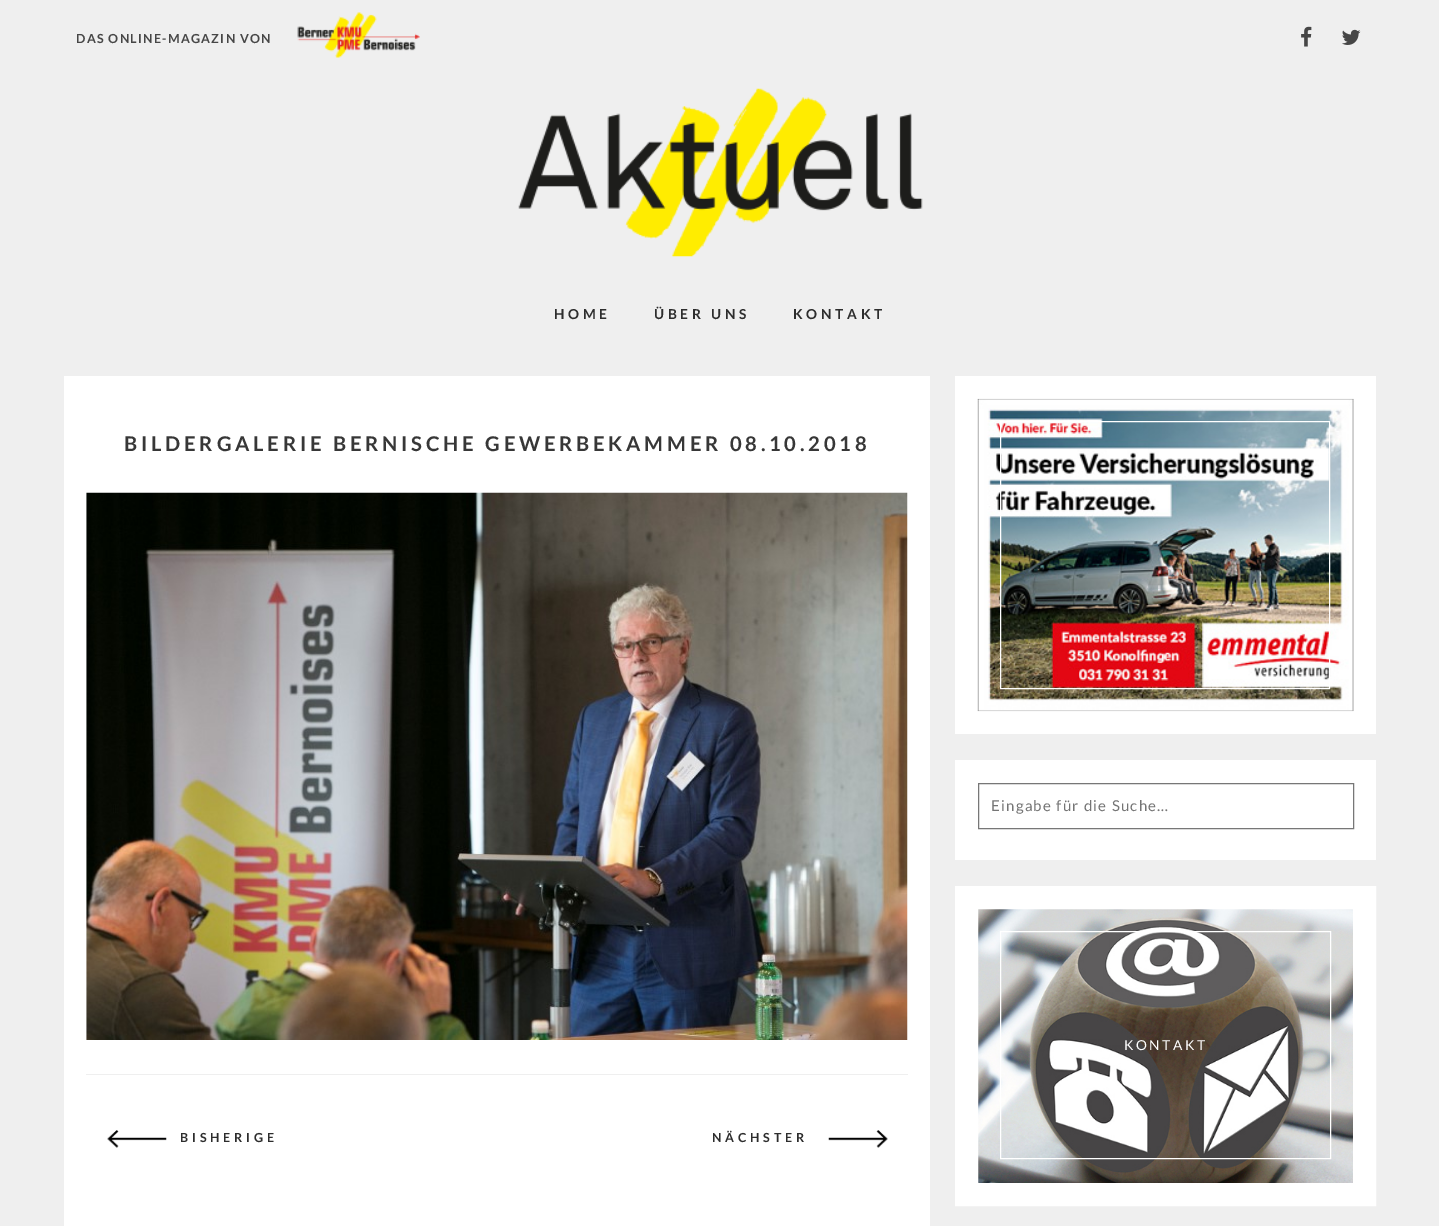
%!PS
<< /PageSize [1439 1226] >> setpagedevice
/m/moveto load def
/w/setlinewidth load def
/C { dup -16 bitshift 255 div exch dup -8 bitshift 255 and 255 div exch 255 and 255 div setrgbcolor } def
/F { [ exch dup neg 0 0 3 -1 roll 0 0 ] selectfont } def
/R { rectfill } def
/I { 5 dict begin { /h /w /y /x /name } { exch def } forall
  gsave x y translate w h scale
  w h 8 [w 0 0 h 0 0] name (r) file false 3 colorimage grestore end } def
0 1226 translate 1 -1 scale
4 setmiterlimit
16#EFEFEF C
0 0 1439 1226 R
/Lato-Bold 12.5 F
16#464646 C
76 43 m 1.25 0 (DAS ONLINE-MAGAZIN VON) ashow
(1.rgb) 297 12 123 46 I
(2.rgb) 1301 26 11 21 I
(3.rgb) 1342 29 19 16 I
(4.rgb) 518 88 405 169 I
/Lato-Bold 13.75 F
16#2D2D2D C
554 319 m 3.75 0 (HOME) ashow
654 319 m 3.75 0 (ÜBER UNS) ashow
793 319 m 3.75 0 (KONTAKT) ashow
16#FFFFFF C
64 376 866 850 R
/Lato-Bold 20.25 F
16#373737 C
124 451 m 3.75 0 (BILDERGALERIE BERNISCHE GEWERBEKAMMER 08.10.2018) ashow
(5.rgb) 86 492 822 548 I
16#EFEFEF C
86 1074 822 1 R
(6.rgb) 107 1130 60 18 I
/Lato-Bold 12.5 F
16#2D2D2D C
180 1142 m 3.75 0 (BISHERIGE) ashow
712 1142 m 3.75 0 (NÄCHSTER) ashow
(7.rgb) 828 1130 60 18 I
16#FFFFFF C
955 376 421 358 R
(8.rgb) 977 398 377 314 I
1000.5 421.5 329 267 rectstroke
955 760 421 100 R
16#777777 C
978.5 783.5 375 45 rectstroke
/Lato-Regular 15 F
16#757575 C
991 811 m 1.25 0 (Eingabe für die Suche…) ashow
(9.rgb) 978 909 375 274 I
16#FFFFFF C
23 w
966.5 897.5 398 297 rectstroke
1 w
1000.5 931.5 330 227 rectstroke
/Lato-Regular 13.75 F
1124 1050 m 2.5 0 (KONTAKT) ashow
showpage
